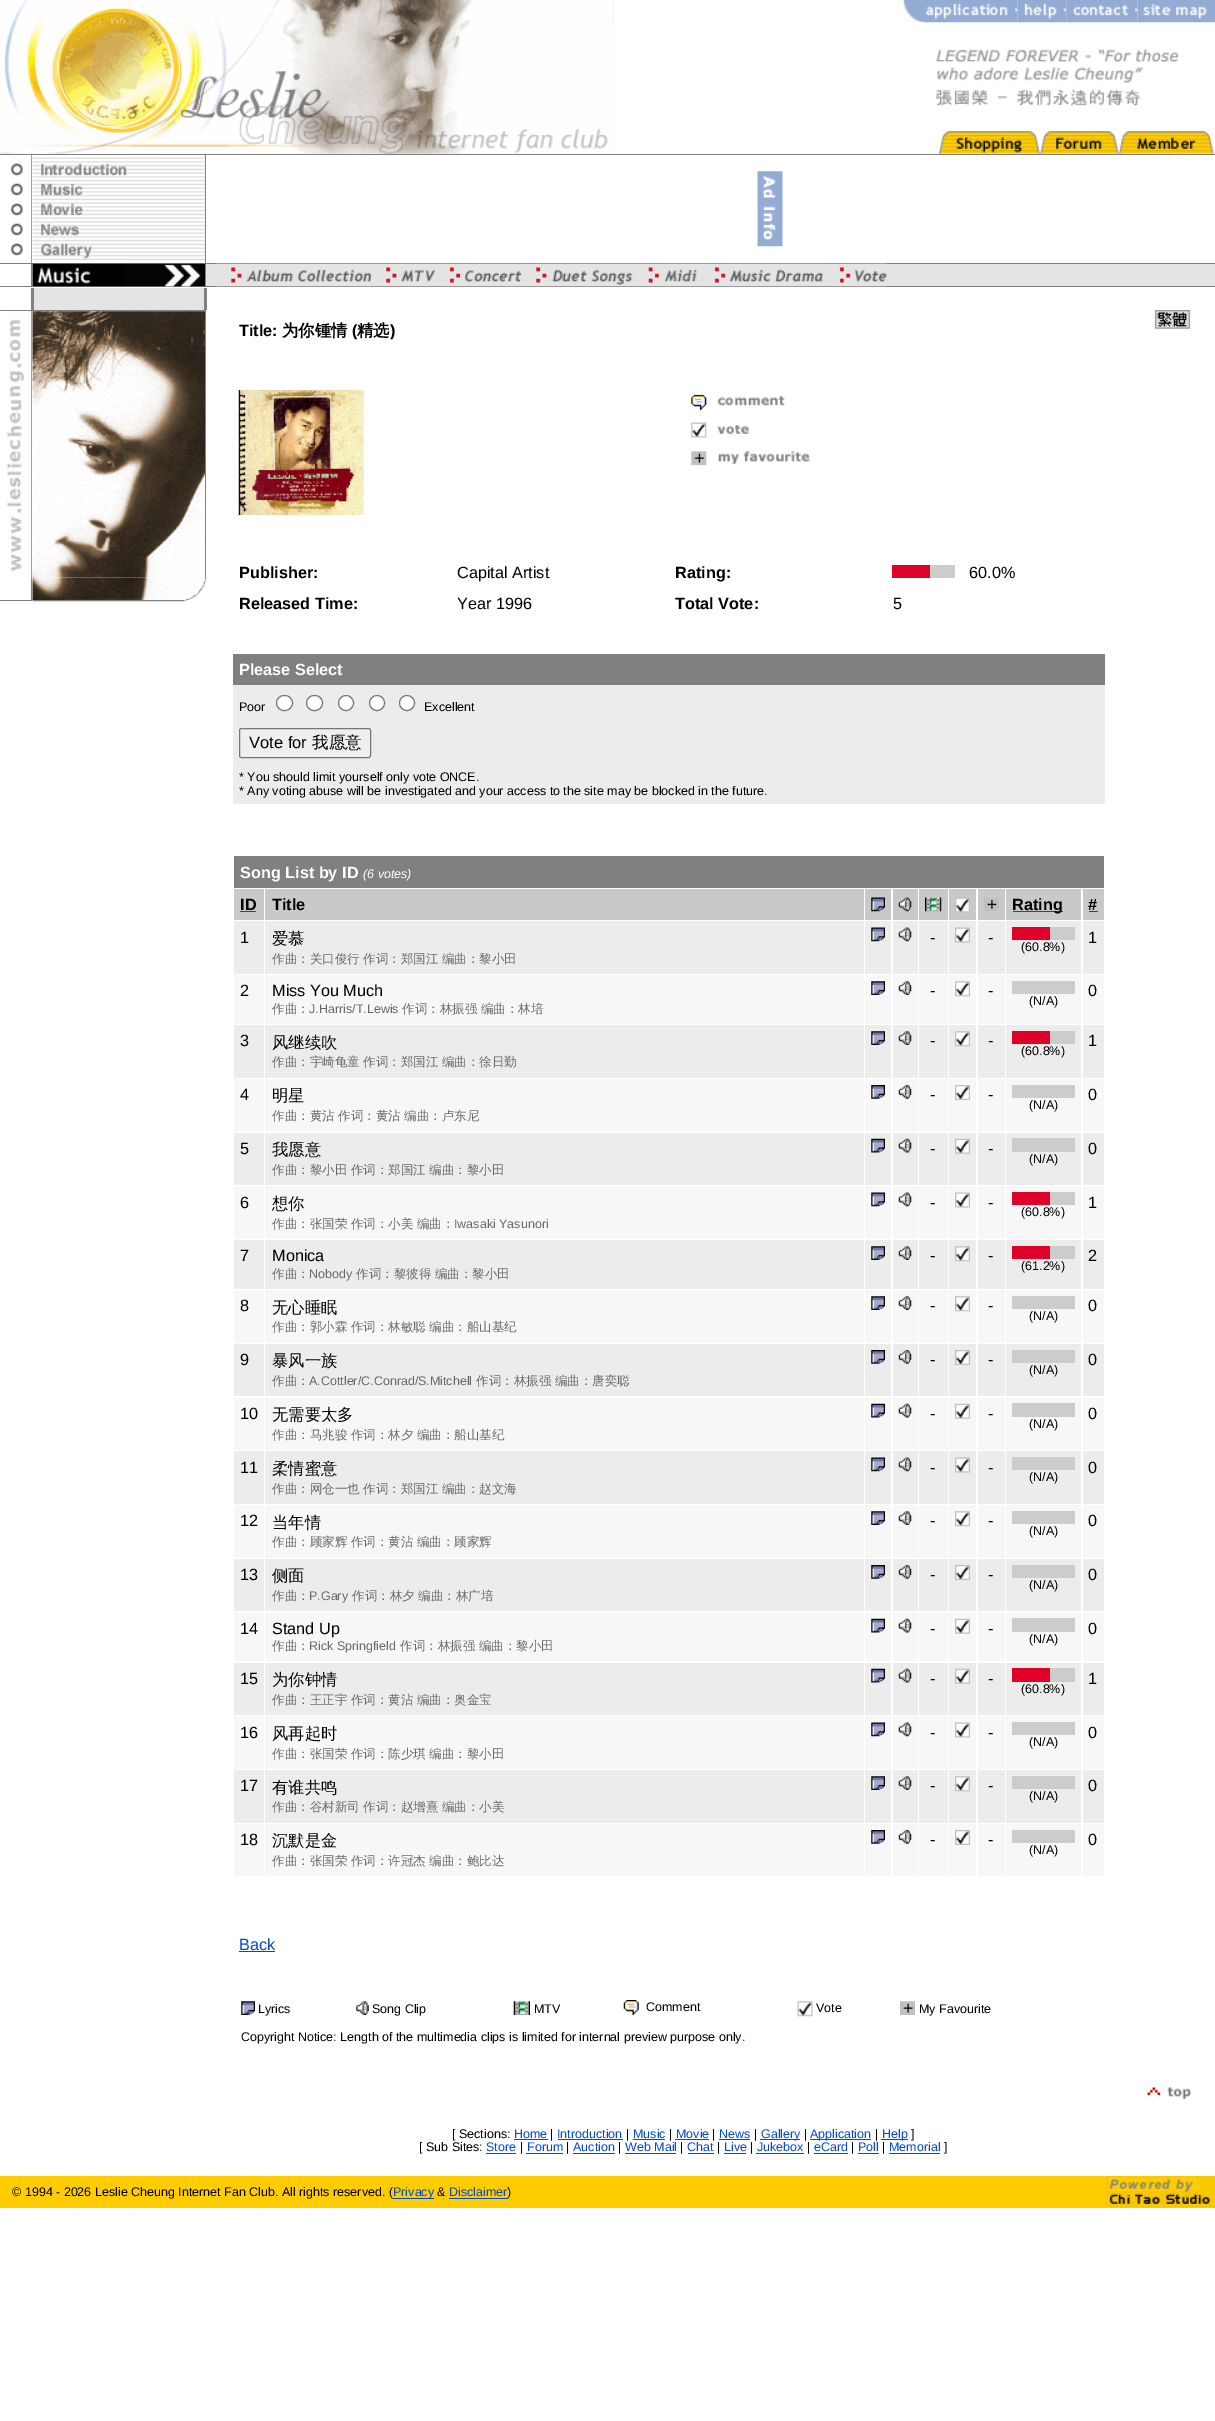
%!PS
<< /PageSize [1215 2421] >> setpagedevice
/f/fill load def
/s/stroke load def
/q/gsave load def
/Q_/grestore load def
/C { dup -16 bitshift 255 div exch dup -8 bitshift 255 and 255 div exch 255 and 255 div setrgbcolor } def
/F { [ exch dup neg 0 0 3 -1 roll 0 0 ] selectfont } def
/T { moveto show } def
/R { rectfill } def
/O { newpath 0 360 arc closepath } def
/Q { 5 dict begin { /r /h /w /y /x } { exch def } forall
  x r add y moveto x w add y 2 copy h add r arct x w add y h add x 1 index r arct
  x y h add x y r arct x y 2 copy exch w add exch r arct closepath end } def
/I { 5 dict begin { /h /w /y /x /name } { exch def } forall
  gsave x y translate w h scale
  w h 8 [w 0 0 h 0 0] name (r) file false 3 colorimage grestore end } def
0 2421 translate 1 -1 scale
4 setmiterlimit
16#FFFFFF C
0 0 1215 2421 R
(1.rgb) 0 0 614 154 I
(2.rgb) 903 0 115 23 I
(3.rgb) 1017 0 50 23 I
(4.rgb) 1066 0 72 23 I
(5.rgb) 1137 0 78 23 I
(6.rgb) 920 22 295 85 I
(7.rgb) 938 131 102 23 I
(8.rgb) 1040 131 79 23 I
(9.rgb) 1118 131 96 23 I
16#808080 C
0 154 1215 1 R
31 155 1 108 R
(10.rgb) 11 155 21 24 I
(11.rgb) 32 157 173 21 I
205 155 1 108 R
(12.rgb) 11 178 21 20 I
(13.rgb) 32 179 173 18 I
(14.rgb) 11 197 21 20 I
(15.rgb) 32 198 173 18 I
(16.rgb) 11 216 21 23 I
(17.rgb) 32 217 173 21 I
(18.rgb) 11 238 21 25 I
(19.rgb) 32 239 173 22 I
(20.rgb) 757 171 26 76 I
0 263 1215 1 R
31 264 1 22 R
0 286 1215 1 R
(21.rgb) 32 263 173 24 I
205 264 1 22 R
16#E4E4E4 C
206 264 1009 22 R
(22.rgb) 216 263 31 24 I
(23.rgb) 246 263 126 24 I
(24.rgb) 371 263 31 24 I
(25.rgb) 401 263 34 24 I
(26.rgb) 435 263 30 24 I
(27.rgb) 465 263 57 24 I
(28.rgb) 521 263 31 24 I
(29.rgb) 551 263 83 24 I
(30.rgb) 633 263 31 24 I
(31.rgb) 663 263 37 24 I
(26.rgb) 700 263 30 24 I
(32.rgb) 730 263 95 24 I
(26.rgb) 825 263 30 24 I
(33.rgb) 855 263 32 24 I
16#808080 C
31 288 3 22 R
16#E4E4E4 C
34 288 170 22 R
16#808080 C
204 288 3 22 R
0 310 206 1 R
31 311 1 289 R
(34.rgb) 7 311 25 267 I
(35.rgb) 32 311 173 267 I
205 311 1 267 R
(36.rgb) 32 577 173 23 I
(37.rgb) 205 577 2 6 I
0 600 32 1 R
(38.rgb) 32 600 156 2 I
(39.rgb) 1155 310 35 19 I
/LiberationSans-Bold 16.25 F
16#000000 C
(Title:) 239 336 T
/WenQuanYiZenHei-Bold 16.25 F
(为你锺情) 282 336 T
/LiberationSans-Bold 16.25 F
(\() 352 336 T
/WenQuanYiZenHei-Bold 16.25 F
(精选) 357 336 T
/LiberationSans-Bold 16.25 F
(\)) 390 336 T
(40.rgb) 238 390 126 125 I
(41.rgb) 691 394 94 17 I
(42.rgb) 691 422 58 16 I
(43.rgb) 691 451 119 15 I
(Publisher:) 239 578 T
/LiberationSans-Regular 16.25 F
(Capital Artist) 457 578 T
/LiberationSans-Bold 16.25 F
(Rating:) 675 578 T
/LiberationSans-Regular 16.25 F
(60.0%) 969 578 T
16#DF0029 C
892 565 38 13 R
16#CCCCCC C
930 565 25 13 R
/LiberationSans-Bold 16.25 F
16#000000 C
(Released Time:) 239 609 T
/LiberationSans-Regular 16.25 F
(Year 1996) 457 609 T
/LiberationSans-Bold 16.25 F
(Total Vote:) 675 609 T
/LiberationSans-Regular 16.25 F
(5) 893 609 T
16#808080 C
233 654 872 31 R
/LiberationSans-Bold 16.25 F
16#FFFFFF C
(Please Select) 239 675 T
16#ECECEC C
233 685 872 119 R
/LiberationSans-Regular 12.5 F
16#000000 C
(Poor) 239 711 T
16#FFFFFF C
276.5 695.5 16 15 7.5 Q q f Q_
16#767676 C
s
16#FFFFFF C
306.5 695.5 16 15 7.5 Q q f Q_
16#767676 C
s
16#FFFFFF C
346 703 7.5 O q f Q_
16#767676 C
s
16#FFFFFF C
377 703 7.5 O q f Q_
16#767676 C
s
16#FFFFFF C
407 703 7.5 O q f Q_
16#767676 C
s
16#000000 C
(Excellent) 424 711 T
16#EFEFEF C
239.5 728.5 131 29 2 Q q f Q_
16#767676 C
s
/LiberationSans-Regular 16.5 F
16#000000 C
(Vote for) 249 748 T
/WenQuanYiZenHei-Medium 16.5 F
(我愿意) 312 748 T
/LiberationSans-Regular 12.5 F
(* You should limit yourself only vote ONCE.) 239 781 T
(* Any voting abuse will be investigated and your access to the site may be blocked in the future.) 239 795 T
16#808080 C
234 856 870 32 R
/LiberationSans-Bold 16.25 F
16#FFFFFF C
(Song List by ID) 240 878 T
/LiberationSans-Italic 12.5 F
(\(6 votes\)) 363 878 T
16#C9C9C9 C
234 889 30 31 R
/LiberationSans-Bold 16.25 F
16#000000 C
(ID) 240 910 T
16#024AC9 C
240 911 16 1 R
16#C9C9C9 C
265 889 599 31 R
16#000000 C
(Title) 272 910 T
16#C9C9C9 C
865 889 26 31 R
(44.rgb) 871 897 14 15 I
893 889 25 31 R
(45.rgb) 898 897 14 15 I
919 889 29 31 R
(46.rgb) 925 897 17 15 I
949 889 27 31 R
(47.rgb) 955 897 15 16 I
978 889 27 31 R
(48.rgb) 984 897 15 14 I
1006 889 75 31 R
16#024AC9 C
1013 911 50 1 R
16#000000 C
(Rating) 1012 910 T
16#C9C9C9 C
1083 889 21 31 R
16#000000 C
(#) 1088 910 T
16#024AC9 C
1089 911 9 1 R
16#ECECEC C
234 921 30 53 R
/LiberationSans-Regular 16.25 F
16#000000 C
(1) 240 943 T
16#ECECEC C
265 921 599 53 R
/WenQuanYiZenHei-Medium 16.25 F
16#000000 C
(爱慕) 272 944 T
/WenQuanYiZenHei-Medium 12.5 F
16#686868 C
(作曲：关口俊行 作词：郑国江 编曲：黎小田) 272 963 T
16#ECECEC C
865 921 26 53 R
(49.rgb) 871 927 14 15 I
893 921 25 53 R
(50.rgb) 898 927 14 15 I
919 921 29 53 R
/LiberationSans-Regular 16.25 F
16#000000 C
(-) 930 943 T
16#ECECEC C
949 921 27 53 R
(51.rgb) 955 927 15 16 I
978 921 27 53 R
16#000000 C
(-) 988 943 T
16#ECECEC C
1083 921 21 53 R
16#000000 C
(1) 1088 943 T
16#ECECEC C
1006 921 75 53 R
/LiberationSans-Regular 12.5 F
16#000000 C
(\(60.8%\)) 1021 951 T
16#DF0029 C
1012 927 38 13 R
16#CCCCCC C
1050 927 25 13 R
16#F7F7F7 C
234 975 30 49 R
/LiberationSans-Regular 16.25 F
16#000000 C
(2) 240 996 T
16#F7F7F7 C
265 975 599 49 R
16#000000 C
(Miss You Much) 272 996 T
/WenQuanYiZenHei-Medium 12.5 F
16#686868 C
(作曲：) 272 1013 T
/LiberationSans-Regular 12.5 F
(J.Harris/T.Lewis) 309 1013 T
/WenQuanYiZenHei-Medium 12.5 F
(作词：林振强 编曲：林培) 402 1013 T
16#F7F7F7 C
865 975 26 49 R
(52.rgb) 871 981 14 14 I
893 975 25 49 R
(53.rgb) 898 981 14 14 I
919 975 29 49 R
/LiberationSans-Regular 16.25 F
16#000000 C
(-) 930 996 T
16#F7F7F7 C
949 975 27 49 R
(54.rgb) 955 981 15 16 I
978 975 27 49 R
16#000000 C
(-) 988 996 T
16#F7F7F7 C
1083 975 21 49 R
16#000000 C
(0) 1088 996 T
16#F7F7F7 C
1006 975 75 49 R
/LiberationSans-Regular 12.5 F
16#000000 C
(\(N/A\)) 1029 1005 T
16#CCCCCC C
1012 981 63 13 R
16#ECECEC C
234 1025 30 53 R
/LiberationSans-Regular 16.25 F
16#000000 C
(3) 240 1046 T
16#ECECEC C
265 1025 599 53 R
/WenQuanYiZenHei-Medium 16.25 F
16#000000 C
(风继续吹) 272 1048 T
/WenQuanYiZenHei-Medium 12.5 F
16#686868 C
(作曲：宇崎龟童 作词：郑国江 编曲：徐日勤) 272 1066 T
16#ECECEC C
865 1025 26 53 R
(55.rgb) 871 1031 14 14 I
893 1025 25 53 R
(56.rgb) 898 1031 14 14 I
919 1025 29 53 R
/LiberationSans-Regular 16.25 F
16#000000 C
(-) 930 1046 T
16#ECECEC C
949 1025 27 53 R
(57.rgb) 955 1031 15 16 I
978 1025 27 53 R
16#000000 C
(-) 988 1046 T
16#ECECEC C
1083 1025 21 53 R
16#000000 C
(1) 1088 1046 T
16#ECECEC C
1006 1025 75 53 R
/LiberationSans-Regular 12.5 F
16#000000 C
(\(60.8%\)) 1021 1055 T
16#DF0029 C
1012 1031 38 13 R
16#CCCCCC C
1050 1031 25 13 R
16#F7F7F7 C
234 1079 30 52 R
/LiberationSans-Regular 16.25 F
16#000000 C
(4) 240 1100 T
16#F7F7F7 C
265 1079 599 52 R
/WenQuanYiZenHei-Medium 16.25 F
16#000000 C
(明星) 272 1101 T
/WenQuanYiZenHei-Medium 12.5 F
16#686868 C
(作曲：黄沾 作词：黄沾 编曲：卢东尼) 272 1120 T
16#F7F7F7 C
865 1079 26 52 R
(58.rgb) 871 1085 14 14 I
893 1079 25 52 R
(59.rgb) 898 1085 14 14 I
919 1079 29 52 R
/LiberationSans-Regular 16.25 F
16#000000 C
(-) 930 1100 T
16#F7F7F7 C
949 1079 27 52 R
(60.rgb) 955 1085 15 15 I
978 1079 27 52 R
16#000000 C
(-) 988 1100 T
16#F7F7F7 C
1083 1079 21 52 R
16#000000 C
(0) 1088 1100 T
16#F7F7F7 C
1006 1079 75 52 R
/LiberationSans-Regular 12.5 F
16#000000 C
(\(N/A\)) 1029 1109 T
16#CCCCCC C
1012 1085 63 13 R
16#ECECEC C
234 1133 30 52 R
/LiberationSans-Regular 16.25 F
16#000000 C
(5) 240 1154 T
16#ECECEC C
265 1133 599 52 R
/WenQuanYiZenHei-Medium 16.25 F
16#000000 C
(我愿意) 272 1155 T
/WenQuanYiZenHei-Medium 12.5 F
16#686868 C
(作曲：黎小田 作词：郑国江 编曲：黎小田) 272 1174 T
16#ECECEC C
865 1133 26 52 R
(61.rgb) 871 1138 14 15 I
893 1133 25 52 R
(62.rgb) 898 1138 14 15 I
919 1133 29 52 R
/LiberationSans-Regular 16.25 F
16#000000 C
(-) 930 1154 T
16#ECECEC C
949 1133 27 52 R
(63.rgb) 955 1138 15 16 I
978 1133 27 52 R
16#000000 C
(-) 988 1154 T
16#ECECEC C
1083 1133 21 52 R
16#000000 C
(0) 1088 1154 T
16#ECECEC C
1006 1133 75 52 R
/LiberationSans-Regular 12.5 F
16#000000 C
(\(N/A\)) 1029 1163 T
16#CCCCCC C
1012 1138 63 14 R
16#F7F7F7 C
234 1186 30 53 R
/LiberationSans-Regular 16.25 F
16#000000 C
(6) 240 1208 T
16#F7F7F7 C
265 1186 599 53 R
/WenQuanYiZenHei-Medium 16.25 F
16#000000 C
(想你) 272 1209 T
/WenQuanYiZenHei-Medium 12.5 F
16#686868 C
(作曲：张国荣 作词：小美 编曲：) 272 1228 T
/LiberationSans-Regular 12.5 F
(Iwasaki Yasunori) 454 1228 T
16#F7F7F7 C
865 1186 26 53 R
(64.rgb) 871 1192 14 15 I
893 1186 25 53 R
(65.rgb) 898 1192 14 15 I
919 1186 29 53 R
/LiberationSans-Regular 16.25 F
16#000000 C
(-) 930 1208 T
16#F7F7F7 C
949 1186 27 53 R
(66.rgb) 955 1192 15 16 I
978 1186 27 53 R
16#000000 C
(-) 988 1208 T
16#F7F7F7 C
1083 1186 21 53 R
16#000000 C
(1) 1088 1208 T
16#F7F7F7 C
1006 1186 75 53 R
/LiberationSans-Regular 12.5 F
16#000000 C
(\(60.8%\)) 1021 1216 T
16#DF0029 C
1012 1192 38 13 R
16#CCCCCC C
1050 1192 25 13 R
16#ECECEC C
234 1240 30 49 R
/LiberationSans-Regular 16.25 F
16#000000 C
(7) 240 1261 T
16#ECECEC C
265 1240 599 49 R
16#000000 C
(Monica) 272 1261 T
/WenQuanYiZenHei-Medium 12.5 F
16#686868 C
(作曲：) 272 1278 T
/LiberationSans-Regular 12.5 F
(Nobody) 309 1278 T
/WenQuanYiZenHei-Medium 12.5 F
(作词：黎彼得 编曲：黎小田) 356 1278 T
16#ECECEC C
865 1240 26 49 R
(55.rgb) 871 1246 14 14 I
893 1240 25 49 R
(56.rgb) 898 1246 14 14 I
919 1240 29 49 R
/LiberationSans-Regular 16.25 F
16#000000 C
(-) 930 1261 T
16#ECECEC C
949 1240 27 49 R
(57.rgb) 955 1246 15 16 I
978 1240 27 49 R
16#000000 C
(-) 988 1261 T
16#ECECEC C
1083 1240 21 49 R
16#000000 C
(2) 1088 1261 T
16#ECECEC C
1006 1240 75 49 R
/LiberationSans-Regular 12.5 F
16#000000 C
(\(61.2%\)) 1021 1270 T
16#DF0029 C
1012 1246 38 13 R
16#CCCCCC C
1050 1246 25 13 R
16#F7F7F7 C
234 1290 30 53 R
/LiberationSans-Regular 16.25 F
16#000000 C
(8) 240 1311 T
16#F7F7F7 C
265 1290 599 53 R
/WenQuanYiZenHei-Medium 16.25 F
16#000000 C
(无心睡眠) 272 1313 T
/WenQuanYiZenHei-Medium 12.5 F
16#686868 C
(作曲：郭小霖 作词：林敏聪 编曲：船山基纪) 272 1331 T
16#F7F7F7 C
865 1290 26 53 R
(52.rgb) 871 1296 14 14 I
893 1290 25 53 R
(53.rgb) 898 1296 14 14 I
919 1290 29 53 R
/LiberationSans-Regular 16.25 F
16#000000 C
(-) 930 1311 T
16#F7F7F7 C
949 1290 27 53 R
(54.rgb) 955 1296 15 16 I
978 1290 27 53 R
16#000000 C
(-) 988 1311 T
16#F7F7F7 C
1083 1290 21 53 R
16#000000 C
(0) 1088 1311 T
16#F7F7F7 C
1006 1290 75 53 R
/LiberationSans-Regular 12.5 F
16#000000 C
(\(N/A\)) 1029 1320 T
16#CCCCCC C
1012 1296 63 13 R
16#ECECEC C
234 1344 30 52 R
/LiberationSans-Regular 16.25 F
16#000000 C
(9) 240 1365 T
16#ECECEC C
265 1344 599 52 R
/WenQuanYiZenHei-Medium 16.25 F
16#000000 C
(暴风一族) 272 1366 T
/WenQuanYiZenHei-Medium 12.5 F
16#686868 C
(作曲：) 272 1385 T
/LiberationSans-Regular 12.5 F
(A.Cottler/C.Conrad/S.Mitchell) 309 1385 T
/WenQuanYiZenHei-Medium 12.5 F
(作词：林振强 编曲：唐奕聪) 476 1385 T
16#ECECEC C
865 1344 26 52 R
(67.rgb) 871 1350 14 14 I
893 1344 25 52 R
(68.rgb) 898 1350 14 14 I
919 1344 29 52 R
/LiberationSans-Regular 16.25 F
16#000000 C
(-) 930 1365 T
16#ECECEC C
949 1344 27 52 R
(60.rgb) 955 1350 15 15 I
978 1344 27 52 R
16#000000 C
(-) 988 1365 T
16#ECECEC C
1083 1344 21 52 R
16#000000 C
(0) 1088 1365 T
16#ECECEC C
1006 1344 75 52 R
/LiberationSans-Regular 12.5 F
16#000000 C
(\(N/A\)) 1029 1374 T
16#CCCCCC C
1012 1350 63 13 R
16#F7F7F7 C
234 1398 30 52 R
/LiberationSans-Regular 16.25 F
16#000000 C
(10) 240 1419 T
16#F7F7F7 C
265 1398 599 52 R
/WenQuanYiZenHei-Medium 16.25 F
16#000000 C
(无需要太多) 272 1420 T
/WenQuanYiZenHei-Medium 12.5 F
16#686868 C
(作曲：马兆骏 作词：林夕 编曲：船山基纪) 272 1439 T
16#F7F7F7 C
865 1398 26 52 R
(69.rgb) 871 1403 14 15 I
893 1398 25 52 R
(70.rgb) 898 1403 14 15 I
919 1398 29 52 R
/LiberationSans-Regular 16.25 F
16#000000 C
(-) 930 1419 T
16#F7F7F7 C
949 1398 27 52 R
(71.rgb) 955 1403 15 16 I
978 1398 27 52 R
16#000000 C
(-) 988 1419 T
16#F7F7F7 C
1083 1398 21 52 R
16#000000 C
(0) 1088 1419 T
16#F7F7F7 C
1006 1398 75 52 R
/LiberationSans-Regular 12.5 F
16#000000 C
(\(N/A\)) 1029 1428 T
16#CCCCCC C
1012 1403 63 14 R
16#ECECEC C
234 1451 30 53 R
/LiberationSans-Regular 16.25 F
16#000000 C
(11) 240 1473 T
16#ECECEC C
265 1451 599 53 R
/WenQuanYiZenHei-Medium 16.25 F
16#000000 C
(柔情蜜意) 272 1474 T
/WenQuanYiZenHei-Medium 12.5 F
16#686868 C
(作曲：网仓一也 作词：郑国江 编曲：赵文海) 272 1493 T
16#ECECEC C
865 1451 26 53 R
(49.rgb) 871 1457 14 15 I
893 1451 25 53 R
(50.rgb) 898 1457 14 15 I
919 1451 29 53 R
/LiberationSans-Regular 16.25 F
16#000000 C
(-) 930 1473 T
16#ECECEC C
949 1451 27 53 R
(51.rgb) 955 1457 15 16 I
978 1451 27 53 R
16#000000 C
(-) 988 1473 T
16#ECECEC C
1083 1451 21 53 R
16#000000 C
(0) 1088 1473 T
16#ECECEC C
1006 1451 75 53 R
/LiberationSans-Regular 12.5 F
16#000000 C
(\(N/A\)) 1029 1481 T
16#CCCCCC C
1012 1457 63 13 R
16#F7F7F7 C
234 1505 30 53 R
/LiberationSans-Regular 16.25 F
16#000000 C
(12) 240 1526 T
16#F7F7F7 C
265 1505 599 53 R
/WenQuanYiZenHei-Medium 16.25 F
16#000000 C
(当年情) 272 1528 T
/WenQuanYiZenHei-Medium 12.5 F
16#686868 C
(作曲：顾家辉 作词：黄沾 编曲：顾家辉) 272 1546 T
16#F7F7F7 C
865 1505 26 53 R
(52.rgb) 871 1511 14 14 I
893 1505 25 53 R
(53.rgb) 898 1511 14 14 I
919 1505 29 53 R
/LiberationSans-Regular 16.25 F
16#000000 C
(-) 930 1526 T
16#F7F7F7 C
949 1505 27 53 R
(54.rgb) 955 1511 15 16 I
978 1505 27 53 R
16#000000 C
(-) 988 1526 T
16#F7F7F7 C
1083 1505 21 53 R
16#000000 C
(0) 1088 1526 T
16#F7F7F7 C
1006 1505 75 53 R
/LiberationSans-Regular 12.5 F
16#000000 C
(\(N/A\)) 1029 1535 T
16#CCCCCC C
1012 1511 63 13 R
16#ECECEC C
234 1559 30 52 R
/LiberationSans-Regular 16.25 F
16#000000 C
(13) 240 1580 T
16#ECECEC C
265 1559 599 52 R
/WenQuanYiZenHei-Medium 16.25 F
16#000000 C
(侧面) 272 1581 T
/WenQuanYiZenHei-Medium 12.5 F
16#686868 C
(作曲：) 272 1600 T
/LiberationSans-Regular 12.5 F
(P.Gary) 309 1600 T
/WenQuanYiZenHei-Medium 12.5 F
(作词：林夕 编曲：林广培) 352 1600 T
16#ECECEC C
865 1559 26 52 R
(67.rgb) 871 1565 14 14 I
893 1559 25 52 R
(68.rgb) 898 1565 14 14 I
919 1559 29 52 R
/LiberationSans-Regular 16.25 F
16#000000 C
(-) 930 1580 T
16#ECECEC C
949 1559 27 52 R
(60.rgb) 955 1565 15 15 I
978 1559 27 52 R
16#000000 C
(-) 988 1580 T
16#ECECEC C
1083 1559 21 52 R
16#000000 C
(0) 1088 1580 T
16#ECECEC C
1006 1559 75 52 R
/LiberationSans-Regular 12.5 F
16#000000 C
(\(N/A\)) 1029 1589 T
16#CCCCCC C
1012 1565 63 13 R
16#F7F7F7 C
234 1613 30 48 R
/LiberationSans-Regular 16.25 F
16#000000 C
(14) 240 1634 T
16#F7F7F7 C
265 1613 599 48 R
16#000000 C
(Stand Up) 272 1634 T
/WenQuanYiZenHei-Medium 12.5 F
16#686868 C
(作曲：) 272 1650 T
/LiberationSans-Regular 12.5 F
(Rick Springfield) 309 1650 T
/WenQuanYiZenHei-Medium 12.5 F
(作词：林振强 编曲：黎小田) 400 1650 T
16#F7F7F7 C
865 1613 26 48 R
(69.rgb) 871 1618 14 15 I
893 1613 25 48 R
(70.rgb) 898 1618 14 15 I
919 1613 29 48 R
/LiberationSans-Regular 16.25 F
16#000000 C
(-) 930 1634 T
16#F7F7F7 C
949 1613 27 48 R
(71.rgb) 955 1618 15 16 I
978 1613 27 48 R
16#000000 C
(-) 988 1634 T
16#F7F7F7 C
1083 1613 21 48 R
16#000000 C
(0) 1088 1634 T
16#F7F7F7 C
1006 1613 75 48 R
/LiberationSans-Regular 12.5 F
16#000000 C
(\(N/A\)) 1029 1643 T
16#CCCCCC C
1012 1618 63 14 R
16#ECECEC C
234 1663 30 52 R
/LiberationSans-Regular 16.25 F
16#000000 C
(15) 240 1684 T
16#ECECEC C
265 1663 599 52 R
/WenQuanYiZenHei-Medium 16.25 F
16#000000 C
(为你钟情) 272 1685 T
/WenQuanYiZenHei-Medium 12.5 F
16#686868 C
(作曲：王正宇 作词：黄沾 编曲：奥金宝) 272 1704 T
16#ECECEC C
865 1663 26 52 R
(61.rgb) 871 1668 14 15 I
893 1663 25 52 R
(62.rgb) 898 1668 14 15 I
919 1663 29 52 R
/LiberationSans-Regular 16.25 F
16#000000 C
(-) 930 1684 T
16#ECECEC C
949 1663 27 52 R
(63.rgb) 955 1668 15 16 I
978 1663 27 52 R
16#000000 C
(-) 988 1684 T
16#ECECEC C
1083 1663 21 52 R
16#000000 C
(1) 1088 1684 T
16#ECECEC C
1006 1663 75 52 R
/LiberationSans-Regular 12.5 F
16#000000 C
(\(60.8%\)) 1021 1693 T
16#DF0029 C
1012 1668 38 14 R
16#CCCCCC C
1050 1668 25 14 R
16#F7F7F7 C
234 1716 30 53 R
/LiberationSans-Regular 16.25 F
16#000000 C
(16) 240 1738 T
16#F7F7F7 C
265 1716 599 53 R
/WenQuanYiZenHei-Medium 16.25 F
16#000000 C
(风再起时) 272 1739 T
/WenQuanYiZenHei-Medium 12.5 F
16#686868 C
(作曲：张国荣 作词：陈少琪 编曲：黎小田) 272 1758 T
16#F7F7F7 C
865 1716 26 53 R
(64.rgb) 871 1722 14 15 I
893 1716 25 53 R
(65.rgb) 898 1722 14 15 I
919 1716 29 53 R
/LiberationSans-Regular 16.25 F
16#000000 C
(-) 930 1738 T
16#F7F7F7 C
949 1716 27 53 R
(66.rgb) 955 1722 15 16 I
978 1716 27 53 R
16#000000 C
(-) 988 1738 T
16#F7F7F7 C
1083 1716 21 53 R
16#000000 C
(0) 1088 1738 T
16#F7F7F7 C
1006 1716 75 53 R
/LiberationSans-Regular 12.5 F
16#000000 C
(\(N/A\)) 1029 1746 T
16#CCCCCC C
1012 1722 63 13 R
16#ECECEC C
234 1770 30 53 R
/LiberationSans-Regular 16.25 F
16#000000 C
(17) 240 1791 T
16#ECECEC C
265 1770 599 53 R
/WenQuanYiZenHei-Medium 16.25 F
16#000000 C
(有谁共鸣) 272 1793 T
/WenQuanYiZenHei-Medium 12.5 F
16#686868 C
(作曲：谷村新司 作词：赵增熹 编曲：小美) 272 1811 T
16#ECECEC C
865 1770 26 53 R
(55.rgb) 871 1776 14 14 I
893 1770 25 53 R
(56.rgb) 898 1776 14 14 I
919 1770 29 53 R
/LiberationSans-Regular 16.25 F
16#000000 C
(-) 930 1791 T
16#ECECEC C
949 1770 27 53 R
(57.rgb) 955 1776 15 16 I
978 1770 27 53 R
16#000000 C
(-) 988 1791 T
16#ECECEC C
1083 1770 21 53 R
16#000000 C
(0) 1088 1791 T
16#ECECEC C
1006 1770 75 53 R
/LiberationSans-Regular 12.5 F
16#000000 C
(\(N/A\)) 1029 1800 T
16#CCCCCC C
1012 1776 63 13 R
16#F7F7F7 C
234 1824 30 52 R
/LiberationSans-Regular 16.25 F
16#000000 C
(18) 240 1845 T
16#F7F7F7 C
265 1824 599 52 R
/WenQuanYiZenHei-Medium 16.25 F
16#000000 C
(沉默是金) 272 1846 T
/WenQuanYiZenHei-Medium 12.5 F
16#686868 C
(作曲：张国荣 作词：许冠杰 编曲：鲍比达) 272 1865 T
16#F7F7F7 C
865 1824 26 52 R
(58.rgb) 871 1830 14 14 I
893 1824 25 52 R
(59.rgb) 898 1830 14 14 I
919 1824 29 52 R
/LiberationSans-Regular 16.25 F
16#000000 C
(-) 930 1845 T
16#F7F7F7 C
949 1824 27 52 R
(60.rgb) 955 1830 15 15 I
978 1824 27 52 R
16#000000 C
(-) 988 1845 T
16#F7F7F7 C
1083 1824 21 52 R
16#000000 C
(0) 1088 1845 T
16#F7F7F7 C
1006 1824 75 52 R
/LiberationSans-Regular 12.5 F
16#000000 C
(\(N/A\)) 1029 1854 T
16#CCCCCC C
1012 1830 63 13 R
/LiberationSans-Regular 16.25 F
16#024AC9 C
(Back) 239 1950 T
239 1951 36 1 R
(72.rgb) 241 2001 14 14 I
/LiberationSans-Regular 12.5 F
16#000000 C
(Lyrics) 258 2013 T
(73.rgb) 356 2001 13 14 I
(Song Clip) 372 2013 T
(74.rgb) 513 2001 17 14 I
(MTV) 534 2013 T
(75.rgb) 623 2000 16 16 I
(Comment) 646 2011 T
(76.rgb) 797 2001 16 16 I
(Vote) 816 2012 T
(77.rgb) 900 2001 15 14 I
(My Favourite) 919 2013 T
(Copyright Notice: Length of the multimedia clips is limited for internal preview purpose only.) 241 2041 T
(78.rgb) 1147 2087 45 12 I
([ Sections:) 452 2138 T
16#024AC9 C
(Home) 514 2138 T
514 2139 34 1 R
16#000000 C
(|) 550 2138 T
16#024AC9 C
(Introduction) 557 2138 T
558 2139 65 1 R
16#000000 C
(|) 626 2138 T
16#024AC9 C
(Music) 633 2138 T
633 2139 32 1 R
16#000000 C
(|) 669 2138 T
16#024AC9 C
(Movie) 676 2138 T
675 2139 34 1 R
16#000000 C
(|) 712 2138 T
16#024AC9 C
(News) 719 2138 T
719 2139 31 1 R
16#000000 C
(|) 754 2138 T
16#024AC9 C
760 2139 40 1 R
(Gallery) 761 2138 T
16#000000 C
(|) 804 2138 T
16#024AC9 C
810 2139 61 1 R
(Application) 810 2138 T
16#000000 C
(|) 875 2138 T
16#024AC9 C
881 2139 27 1 R
(Help) 882 2138 T
16#000000 C
(]) 911 2138 T
([ Sub Sites:) 419 2151 T
16#024AC9 C
(Store) 486 2151 T
486 2153 30 1 R
16#000000 C
(|) 520 2151 T
16#024AC9 C
(Forum) 527 2151 T
526 2153 37 1 R
16#000000 C
(|) 566 2151 T
16#024AC9 C
(Auction) 573 2151 T
573 2153 42 1 R
16#000000 C
(|) 618 2151 T
16#024AC9 C
(Web Mail) 625 2151 T
625 2153 51 1 R
16#000000 C
(|) 680 2151 T
16#024AC9 C
(Chat) 687 2151 T
688 2153 26 1 R
16#000000 C
(|) 717 2151 T
16#024AC9 C
(Live) 724 2151 T
724 2153 22 1 R
16#000000 C
(|) 750 2151 T
16#024AC9 C
(Jukebox) 757 2151 T
756 2153 48 1 R
16#000000 C
(|) 807 2151 T
16#024AC9 C
(eCard) 814 2151 T
814 2153 34 1 R
16#000000 C
(|) 851 2151 T
16#024AC9 C
(Poll) 858 2151 T
858 2153 21 1 R
16#000000 C
(|) 882 2151 T
16#024AC9 C
(Memorial) 889 2151 T
889 2153 51 1 R
16#000000 C
(]) 944 2151 T
16#FFCC00 C
0 2176 1215 32 R
16#000000 C
(© 1994 - 2026 Leslie Cheung Internet Fan Club. All rights reserved. \() 12 2196 T
16#024AC9 C
393 2198 41 1 R
(Privacy) 393 2196 T
16#000000 C
(&) 437 2196 T
16#024AC9 C
(Disclaimer) 449 2196 T
449 2198 59 1 R
16#000000 C
(\)) 507 2196 T
(79.rgb) 1106 2176 109 31 I
showpage
